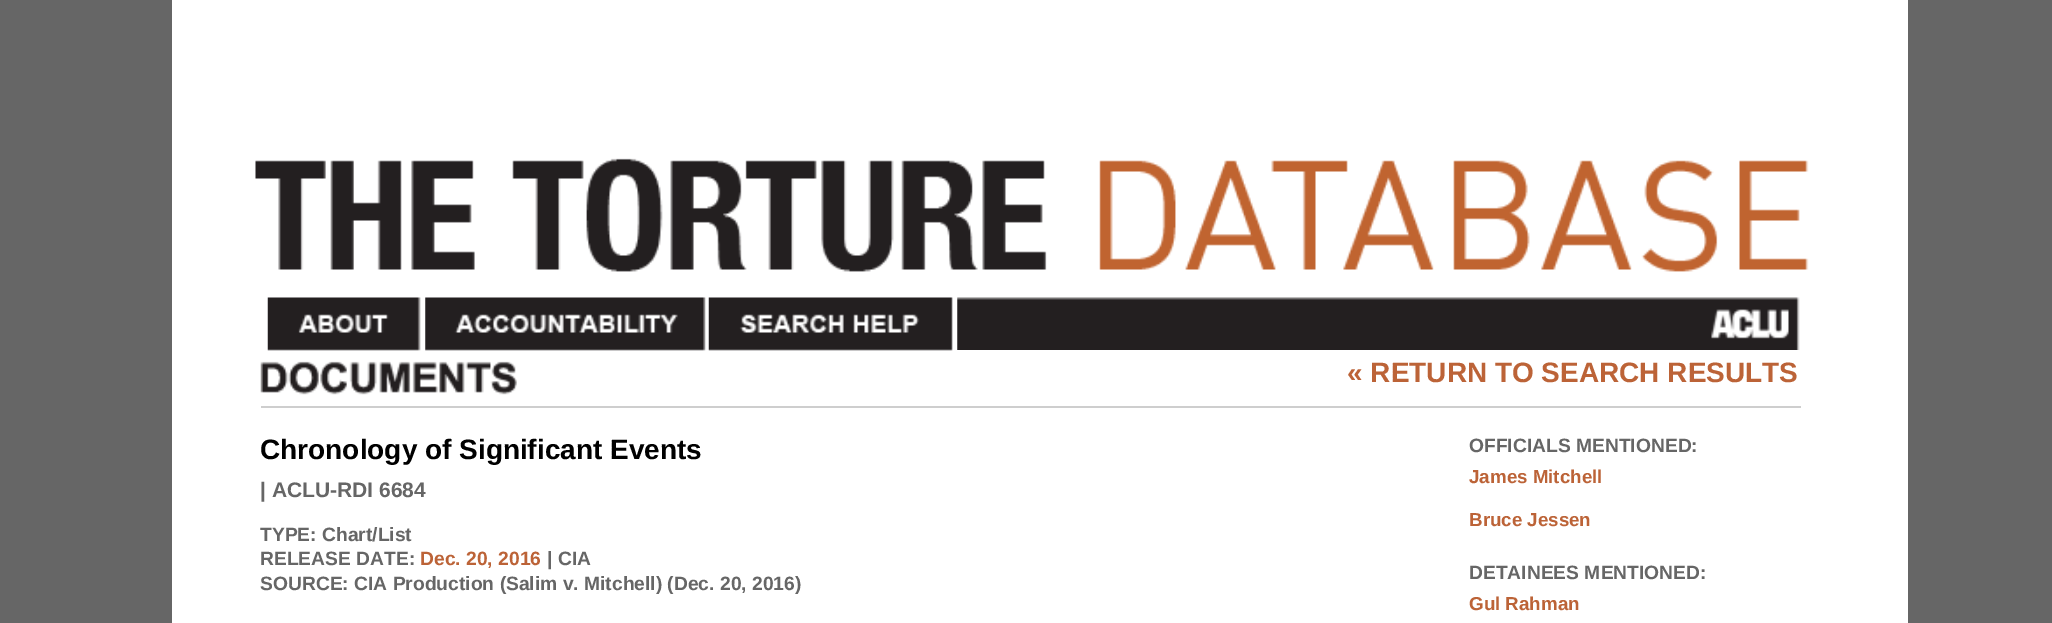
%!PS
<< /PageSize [2052 623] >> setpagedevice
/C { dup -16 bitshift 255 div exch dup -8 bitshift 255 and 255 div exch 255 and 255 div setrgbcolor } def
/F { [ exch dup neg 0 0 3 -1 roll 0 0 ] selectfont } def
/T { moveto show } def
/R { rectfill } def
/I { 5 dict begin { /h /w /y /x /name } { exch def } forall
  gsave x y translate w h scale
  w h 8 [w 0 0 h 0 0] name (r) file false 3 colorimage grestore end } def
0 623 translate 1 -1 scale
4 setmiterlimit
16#666666 C
0 0 2052 623 R
16#FFFFFF C
172 0 1736 623 R
(1.rgb) 255 158 1554 114 I
(2.rgb) 267 297 154 54 I
(3.rgb) 425 297 281 54 I
(4.rgb) 708 297 245 54 I
(5.rgb) 957 297 843 53 I
(6.rgb) 260 361 257 34 I
16#CECECE C
261 406 1540 2 R
/LiberationSans-Bold 28 F
16#BC6337 C
(« RETURN TO SEARCH RESULTS) 1347 382 T
16#000000 C
(Chronology of Significant Events) 260 459 T
/LiberationSans-Bold 21 F
16#666666 C
(| ACLU-RDI 6684) 260 497 T
/LiberationSans-Bold 19.25 F
(TYPE: Chart/List) 260 541 T
(RELEASE DATE:) 260 565 T
16#BC6337 C
(Dec. 20, 2016) 420 565 T
16#666666 C
(| CIA) 547 565 T
(SOURCE: CIA Production \(Salim v. Mitchell\) \(Dec. 20, 2016\)) 260 590 T
(OFFICIALS MENTIONED:) 1469 452 T
/LiberationSans-Bold 18.75 F
16#BC6337 C
(James Mitchell) 1469 483 T
(Bruce Jessen) 1469 526 T
/LiberationSans-Bold 19.25 F
16#666666 C
(DETAINEES MENTIONED:) 1469 579 T
/LiberationSans-Bold 18.75 F
16#BC6337 C
(Gul Rahman) 1469 610 T
showpage
